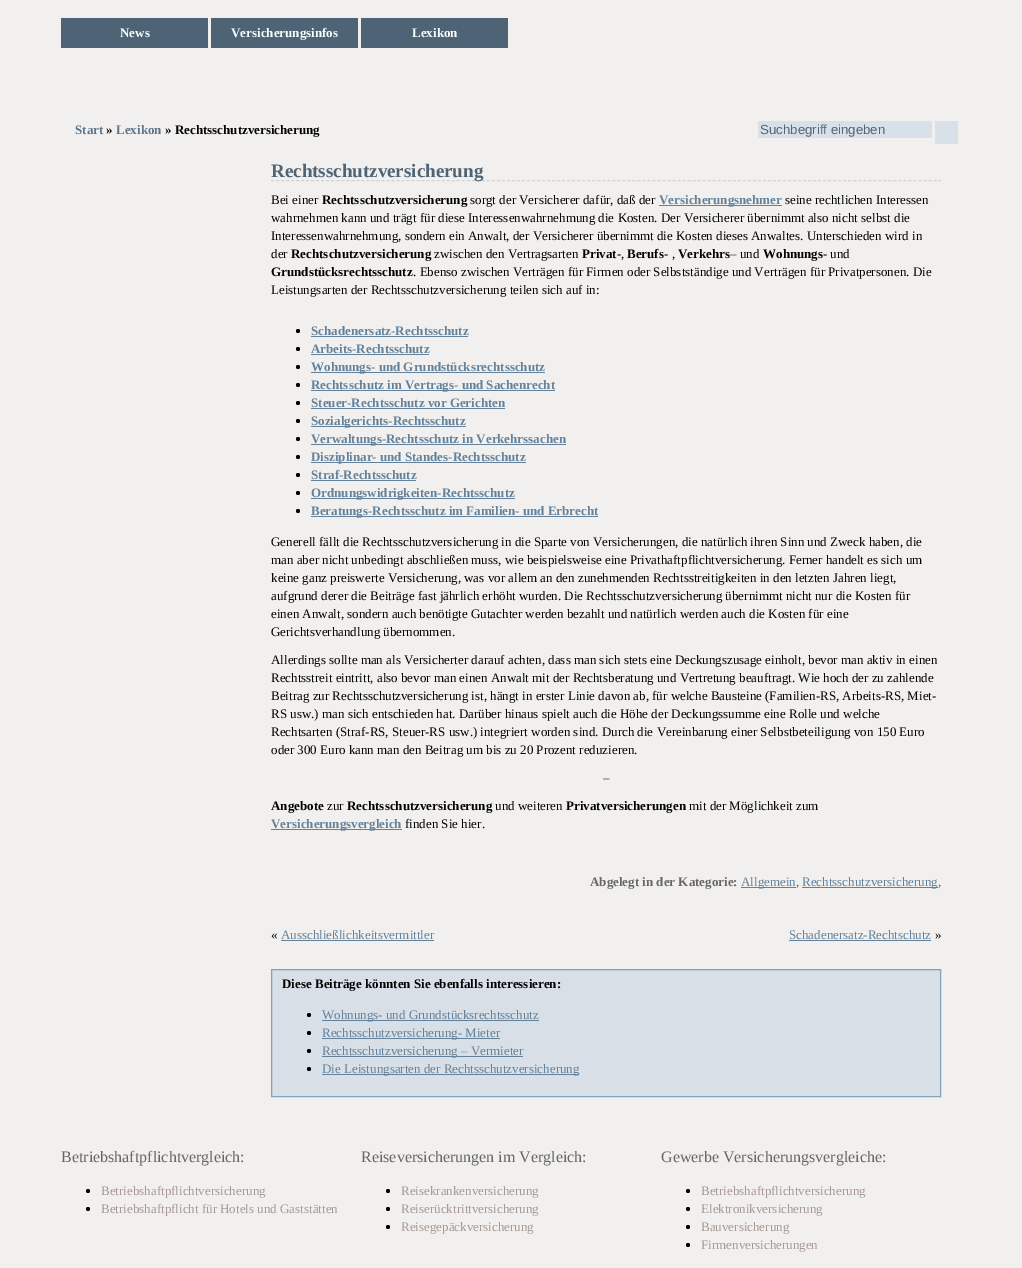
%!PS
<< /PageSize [1022 1268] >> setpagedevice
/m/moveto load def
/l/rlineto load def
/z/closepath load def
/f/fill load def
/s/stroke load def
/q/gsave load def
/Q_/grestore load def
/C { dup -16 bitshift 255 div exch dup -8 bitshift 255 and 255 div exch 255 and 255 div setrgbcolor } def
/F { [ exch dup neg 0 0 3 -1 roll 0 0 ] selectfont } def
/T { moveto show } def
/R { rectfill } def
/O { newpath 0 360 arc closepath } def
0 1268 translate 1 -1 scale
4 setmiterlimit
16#F1F0EE C
0 0 1022 1268 R
16#4E6376 C
61 18 147 30 R
/LiberationSerif-Bold 13 F
16#FCFFFF C
(News) 120 37 T
16#4E6376 C
211 18 147 30 R
16#FCFFFF C
(Versicherungsinfos) 231 37 T
16#4E6376 C
361 18 147 30 R
16#FCFFFF C
(Lexikon) 412 37 T
16#5B758C C
(Start) 75 134 T
16#000000 C
(») 106 134 T
16#5B758C C
(Lexikon) 116 134 T
16#000000 C
(» Rechtsschutzversicherung) 165 134 T
16#D8E1EA C
758 121 174 17 R
/LiberationSans-Regular 13.25 F
16#546575 C
(Suchbegriff eingeben) 760 134 T
16#D8E1EA C
935 121 23 23 R
16#D3D3D3 C
[3 2.02] 0 setdash
271 180.5 m 670 0 l s
/LiberationSerif-Bold 19 F
16#4E6376 C
(Rechtsschutzversicherung) 271 177 T
/LiberationSerif-Regular 13 F
16#000000 C
(Bei einer) 271 204 T
/LiberationSerif-Bold 13 F
(Rechtsschutzversicherung) 322 204 T
/LiberationSerif-Regular 13 F
(sorgt der Versicherer dafür, daß der) 470 204 T
16#63819B C
659 205 123 1 R
/LiberationSerif-Bold 13 F
(Versicherungsnehmer) 659 204 T
/LiberationSerif-Regular 13 F
16#000000 C
(seine rechtlichen Interessen) 785 204 T
(wahrnehmen kann und trägt für diese Interessenwahrnehmung die Kosten. Der Versicherer übernimmt also nicht selbst die) 271 222 T
(Interessenwahrnehmung, sondern ein Anwalt, der Versicherer übernimmt die Kosten dieses Anwaltes. Unterschieden wird in) 271 240 T
(der) 271 258 T
/LiberationSerif-Bold 13 F
(Rechtschutzversicherung) 291 258 T
/LiberationSerif-Regular 13 F
(zwischen den Vertragsarten) 434 258 T
/LiberationSerif-Bold 13 F
(Privat-) 582 258 T
/LiberationSerif-Regular 13 F
(,) 621 258 T
/LiberationSerif-Bold 13 F
(Berufs-) 627 258 T
/LiberationSerif-Regular 13 F
(,) 672 258 T
/LiberationSerif-Bold 13 F
(Verkehrs) 678 258 T
/LiberationSerif-Regular 13 F
(– und) 730 258 T
/LiberationSerif-Bold 13 F
(Wohnungs-) 763 258 T
/LiberationSerif-Regular 13 F
(und) 830 258 T
/LiberationSerif-Bold 13 F
(Grundstücksrechtsschutz) 271 276 T
/LiberationSerif-Regular 13 F
(. Ebenso zwischen Verträgen für Firmen oder Selbstständige und Verträgen für Privatpersonen. Die) 413 276 T
(Leistungsarten der Rechtsschutzversicherung teilen sich auf in:) 271 294 T
298 331 2 O f
/LiberationSerif-Bold 13 F
16#63819B C
(Schadenersatz-Rechtsschutz) 311 335 T
311 336 157 1 R
16#000000 C
298 349 2 O f
16#63819B C
(Arbeits-Rechtsschutz) 311 353 T
311 354 118 1 R
16#000000 C
298 367 2 O f
16#63819B C
311 372 234 1 R
(Wohnungs- und Grundstücksrechtsschutz) 311 371 T
16#000000 C
298 385 2 O f
16#63819B C
311 390 244 1 R
(Rechtsschutz im Vertrags- und Sachenrecht) 311 389 T
16#000000 C
298 403 2 O f
16#63819B C
(Steuer-Rechtsschutz vor Gerichten) 311 407 T
311 408 194 1 R
16#000000 C
298 421 2 O f
16#63819B C
311 426 155 1 R
(Sozialgerichts-Rechtsschutz) 311 425 T
16#000000 C
298 439 2 O f
16#63819B C
311 444 255 1 R
(Verwaltungs-Rechtsschutz in Verkehrssachen) 311 443 T
16#000000 C
298 457 2 O f
16#63819B C
311 462 215 1 R
(Disziplinar- und Standes-Rechtsschutz) 311 461 T
16#000000 C
298 475 2 O f
16#63819B C
(Straf-Rechtsschutz) 311 479 T
311 480 105 1 R
16#000000 C
298 493 2 O f
16#63819B C
311 498 204 1 R
(Ordnungswidrigkeiten-Rechtsschutz) 311 497 T
16#000000 C
298 511 2 O f
16#63819B C
311 516 287 1 R
(Beratungs-Rechtsschutz im Familien- und Erbrecht) 311 515 T
/LiberationSerif-Regular 13 F
16#000000 C
(Generell fällt die Rechtsschutzversicherung in die Sparte von Versicherungen, die natürlich ihren Sinn und Zweck haben, die) 271 546 T
(man aber nicht unbedingt abschließen muss, wie beispielsweise eine Privathaftpflichtversicherung. Ferner handelt es sich um) 271 564 T
(keine ganz preiswerte Versicherung, was vor allem an den zunehmenden Rechtsstreitigkeiten in den letzten Jahren liegt,) 271 582 T
(aufgrund derer die Beiträge fast jährlich erhöht wurden. Die Rechtsschutzversicherung übernimmt nicht nur die Kosten für) 271 600 T
(einen Anwalt, sondern auch benötigte Gutachter werden bezahlt und natürlich werden auch die Kosten für eine) 271 618 T
(Gerichtsverhandlung übernommen.) 271 636 T
(Allerdings sollte man als Versicherter darauf achten, dass man sich stets eine Deckungszusage einholt, bevor man aktiv in einen) 271 664 T
(Rechtsstreit eintritt, also bevor man einen Anwalt mit der Rechtsberatung und Vertretung beauftragt. Wie hoch der zu zahlende) 271 682 T
(Beitrag zur Rechtsschutzversicherung ist, hängt in erster Linie davon ab, für welche Bausteine \(Familien-RS, Arbeits-RS, Miet-) 271 700 T
(RS usw.\) man sich entschieden hat. Darüber hinaus spielt auch die Höhe der Deckungssumme eine Rolle und welche) 271 718 T
(Rechtsarten \(Straf-RS, Steuer-RS usw.\) integriert worden sind. Durch die Vereinbarung einer Selbstbeteiligung von 150 Euro) 271 736 T
(oder 300 Euro kann man den Beitrag um bis zu 20 Prozent reduzieren.) 271 754 T
(–) 603 782 T
/LiberationSerif-Bold 13 F
(Angebote) 271 810 T
/LiberationSerif-Regular 13 F
(zur) 327 810 T
/LiberationSerif-Bold 13 F
(Rechtsschutzversicherung) 347 810 T
/LiberationSerif-Regular 13 F
(und weiteren) 495 810 T
/LiberationSerif-Bold 13 F
(Privatversicherungen) 566 810 T
/LiberationSerif-Regular 13 F
(mit der Möglichkeit zum) 689 810 T
16#63819B C
271 829 131 1 R
/LiberationSerif-Bold 13 F
(Versicherungsvergleich) 271 828 T
/LiberationSerif-Regular 13 F
16#000000 C
(finden Sie hier.) 405 828 T
/LiberationSerif-Bold 13 F
16#666666 C
(Abgelegt in der Kategorie:) 590 886 T
16#63819B C
741 887 55 1 R
/LiberationSerif-Regular 13 F
(Allgemein) 741 886 T
16#666666 C
(,) 796 886 T
16#63819B C
802 887 136 1 R
(Rechtsschutzversicherung) 802 886 T
16#666666 C
(,) 938 886 T
16#000000 C
(«) 271 939 T
16#63819B C
(Ausschließlichkeitsvermittler) 281 939 T
281 940 153 1 R
(Schadenersatz-Rechtschutz) 789 939 T
789 940 142 1 R
16#000000 C
(») 935 939 T
16#D8DFE7 C
271.5 969.5 m 669 0 l 0 127 l -669 0 l z q f Q_
16#7FA1BC C
[] 0 setdash
s
/LiberationSerif-Bold 13 F
16#000000 C
(Diese Beiträge könnten Sie ebenfalls interessieren:) 282 988 T
309 1015 2 O f
16#63819B C
322 1020 217 1 R
/LiberationSerif-Regular 13 F
(Wohnungs- und Grundstücksrechtsschutz) 322 1019 T
16#000000 C
309 1033 2 O f
16#63819B C
322 1038 178 1 R
(Rechtsschutzversicherung- Mieter) 322 1037 T
16#000000 C
309 1051 2 O f
16#63819B C
322 1056 201 1 R
(Rechtsschutzversicherung – Vermieter) 322 1055 T
16#000000 C
309 1069 2 O f
16#63819B C
322 1074 257 1 R
(Die Leistungsarten der Rechtsschutzversicherung) 322 1073 T
/LiberationSerif-Regular 16 F
16#666666 C
(Betriebshaftpflichtvergleich:) 61 1162 T
16#000000 C
88 1191 2 O f
/LiberationSerif-Regular 13 F
16#A79991 C
(Betriebshaftpflichtversicherung) 101 1195 T
16#000000 C
88 1209 2 O f
16#A79991 C
(Betriebshaftpflicht für Hotels und Gaststätten) 101 1213 T
/LiberationSerif-Regular 16 F
16#666666 C
(Reiseversicherungen im Vergleich:) 361 1162 T
16#000000 C
388 1191 2 O f
/LiberationSerif-Regular 13 F
16#A79991 C
(Reisekrankenversicherung) 401 1195 T
16#000000 C
388 1209 2 O f
16#A79991 C
(Reiserücktrittversicherung) 401 1213 T
16#000000 C
388 1227 2 O f
16#A79991 C
(Reisegepäckversicherung) 401 1231 T
/LiberationSerif-Regular 16 F
16#666666 C
(Gewerbe Versicherungsvergleiche:) 661 1162 T
16#000000 C
688 1191 2 O f
/LiberationSerif-Regular 13 F
16#A79991 C
(Betriebshaftpflichtversicherung) 701 1195 T
16#000000 C
688 1209 2 O f
16#A79991 C
(Elektronikversicherung) 701 1213 T
16#000000 C
688 1227 2 O f
16#A79991 C
(Bauversicherung) 701 1231 T
16#000000 C
688 1245 2 O f
16#A79991 C
(Firmenversicherungen) 701 1249 T
showpage
